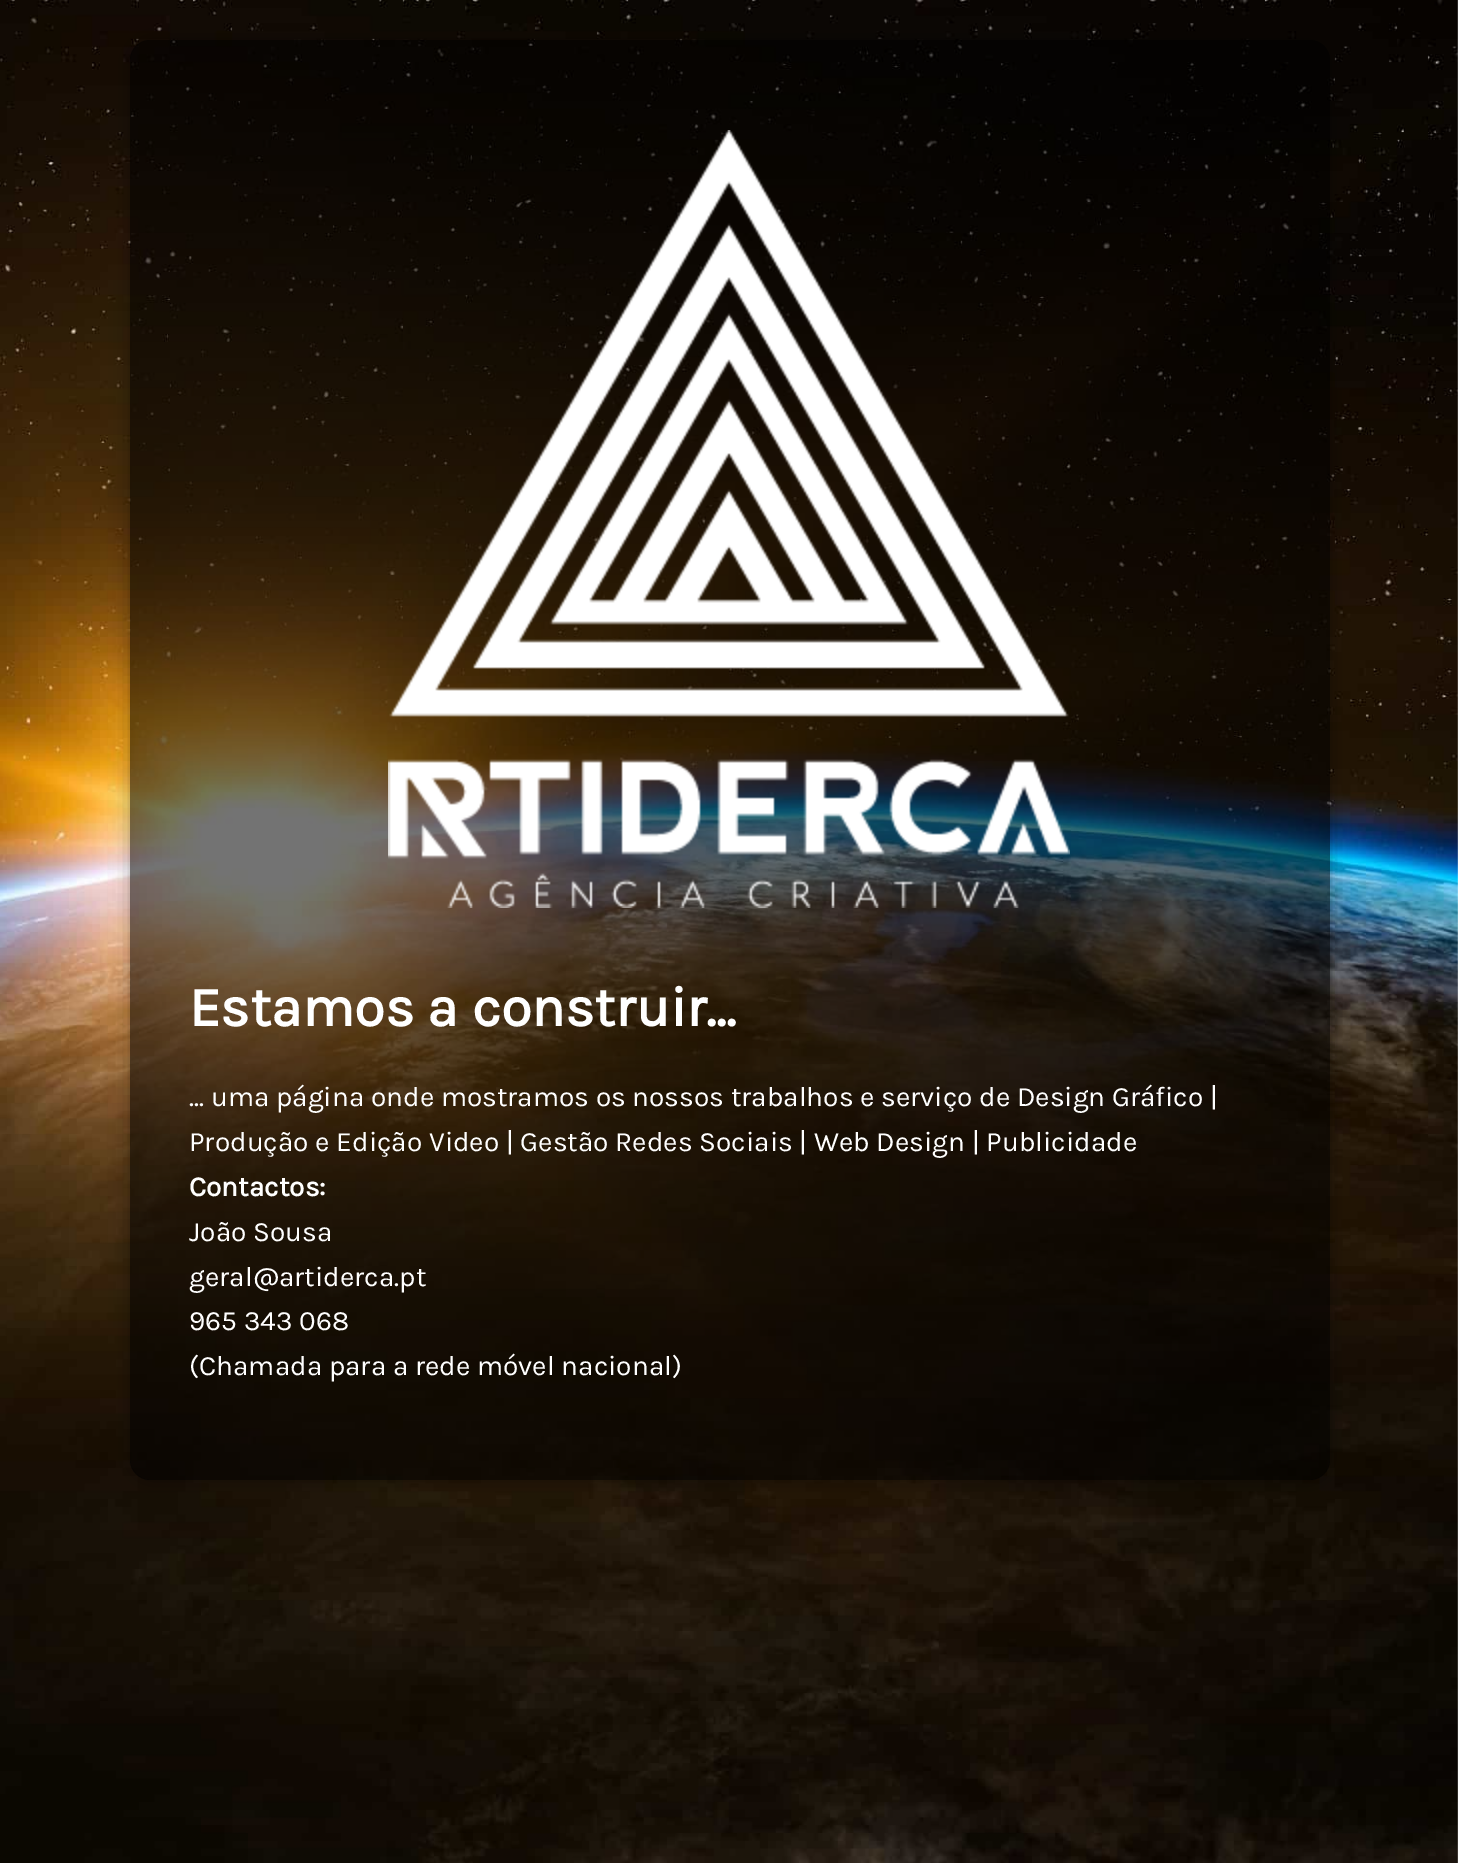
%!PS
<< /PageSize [1458 1863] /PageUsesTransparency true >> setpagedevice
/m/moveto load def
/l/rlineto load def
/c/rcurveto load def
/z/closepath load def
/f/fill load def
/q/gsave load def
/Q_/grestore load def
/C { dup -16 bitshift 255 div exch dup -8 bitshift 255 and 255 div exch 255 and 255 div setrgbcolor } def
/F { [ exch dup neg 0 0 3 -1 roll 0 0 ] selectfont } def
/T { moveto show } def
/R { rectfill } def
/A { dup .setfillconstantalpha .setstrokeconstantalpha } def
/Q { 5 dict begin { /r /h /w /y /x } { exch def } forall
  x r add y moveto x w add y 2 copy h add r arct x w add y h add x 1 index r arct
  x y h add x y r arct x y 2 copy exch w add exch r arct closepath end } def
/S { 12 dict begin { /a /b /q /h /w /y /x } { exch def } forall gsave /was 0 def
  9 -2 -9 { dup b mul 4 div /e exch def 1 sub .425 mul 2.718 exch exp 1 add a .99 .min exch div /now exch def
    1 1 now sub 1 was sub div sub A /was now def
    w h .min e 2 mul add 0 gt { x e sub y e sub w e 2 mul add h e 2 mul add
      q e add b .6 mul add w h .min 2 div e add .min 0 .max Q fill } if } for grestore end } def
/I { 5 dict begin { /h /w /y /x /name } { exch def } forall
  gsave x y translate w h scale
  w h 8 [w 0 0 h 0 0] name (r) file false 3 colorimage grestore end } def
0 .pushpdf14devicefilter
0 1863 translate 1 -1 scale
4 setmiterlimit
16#FFFFFF C
0 0 1458 1863 R
(1.rgb) 0 0 1458 1863 I
q
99 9 m 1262 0 l 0 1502 l -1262 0 l z 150 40 m 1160 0 l 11 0 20 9 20 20 c 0 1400 l 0 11 -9 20 -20 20 c -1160 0 l -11 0 -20 -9 -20 -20 c 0 -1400 l 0 -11 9 -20 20 -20 c z eoclip newpath
16#000000 C
130 40 1200 1440 20 10 .33 S
Q_
0.55 A
16#000000 C
130 40 1200 1440 20 Q f
1 A
(2.rgb) 388 130 682 778 I
/Karla-Bold 56 F
16#FFFFFF C
(Estamos a construir...) 189 1026 T
/Karla-Regular 28 F
(... uma página onde mostramos os nossos trabalhos e serviço de Design Gráfico |) 189 1106 T
(Produção e Edição Video | Gestão Redes Sociais | Web Design | Publicidade) 189 1151 T
/Karla-Bold 28 F
(Contactos:) 189 1196 T
/Karla-Regular 28 F
(João Sousa) 189 1241 T
(geral@artiderca.pt) 189 1286 T
(965 343 068) 189 1330 T
(\(Chamada para a rede móvel nacional\)) 189 1375 T
.poppdf14devicefilter showpage
